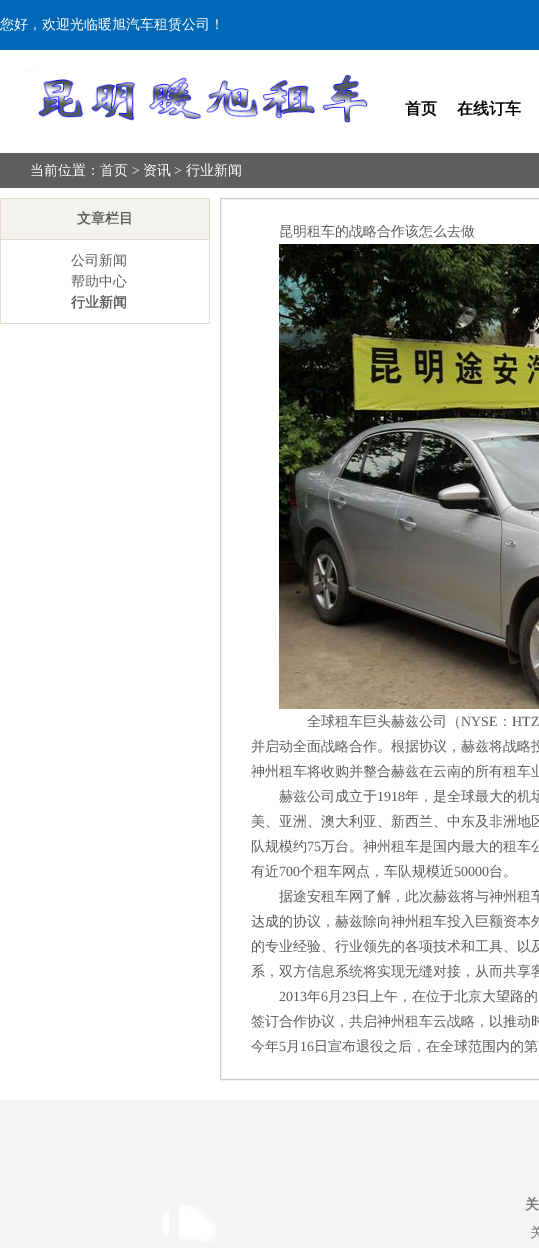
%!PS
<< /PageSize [539 1248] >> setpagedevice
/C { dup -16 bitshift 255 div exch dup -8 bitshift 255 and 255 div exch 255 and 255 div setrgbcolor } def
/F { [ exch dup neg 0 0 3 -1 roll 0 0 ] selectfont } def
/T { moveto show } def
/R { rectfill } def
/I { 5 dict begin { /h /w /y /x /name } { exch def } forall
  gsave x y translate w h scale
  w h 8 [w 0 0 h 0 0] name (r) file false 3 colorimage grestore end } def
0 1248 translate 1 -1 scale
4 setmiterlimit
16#FFFFFF C
0 0 539 1248 R
16#0068B7 C
0 0 539 50 R
/WenQuanYiZenHei-Medium 14 F
16#FFFFFF C
(您好，欢迎光临暖旭汽车租赁公司！) 0 29 T
(1.rgb) 25 70 237 24 I
(2.rgb) 38 75 330 48 I
/WenQuanYiZenHei-Bold 16 F
16#000000 C
(首页) 405 114 T
(在线订车) 457 114 T
16#5E5E5E C
0 153 539 35 R
/WenQuanYiZenHei-Medium 14 F
16#FFFFFF C
(当前位置：首页) 30 175 T
/LiberationSerif-Regular 14 F
(>) 132 175 T
/WenQuanYiZenHei-Medium 14 F
(资讯) 143 175 T
/LiberationSerif-Regular 14 F
(>) 174 175 T
/WenQuanYiZenHei-Medium 14 F
(行业新闻) 186 175 T
16#E1DBCE C
209 198 1 126 R
0 323 210 1 R
0 198 1 126 R
16#F4F2EC C
1 199 208 40 R
16#E1DBCE C
1 198 208 1 R
1 239 208 1 R
/WenQuanYiZenHei-Bold 14 F
16#5E5E5E C
(文章栏目) 77 223 T
/WenQuanYiZenHei-Medium 14 F
(公司新闻) 71 265 T
(帮助中心) 71 286 T
/WenQuanYiZenHei-Bold 14 F
(行业新闻) 71 307 T
16#CDCBCC C
220.5 198.5 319 881 rectstroke
/WenQuanYiZenHei-Medium 14 F
16#5E5E5E C
(昆明租车的战略合作该怎么去做) 279 236 T
(3.rgb) 279 244 260 465 I
(全球租车巨头赫兹公司（) 307 726 T
/LiberationSerif-Regular 14 F
(NYSE) 461 726 T
/WenQuanYiZenHei-Medium 14 F
(：) 498 726 T
/LiberationSerif-Regular 14 F
(HTZ) 512 726 T
/WenQuanYiZenHei-Medium 14 F
(并启动全面战略合作。根据协议，赫兹将战略投) 251 751 T
(神州租车将收购并整合赫兹在云南的所有租车业) 251 776 T
(赫兹公司成立于) 279 801 T
/LiberationSerif-Regular 14 F
(1918) 377 801 T
/WenQuanYiZenHei-Medium 14 F
(年，是全球最大的机场) 405 801 T
(美、亚洲、澳大利亚、新西兰、中东及非洲地区) 251 826 T
(队规模约) 251 851 T
/LiberationSerif-Regular 14 F
(75) 307 851 T
/WenQuanYiZenHei-Medium 14 F
(万台。神州租车是国内最大的租车公) 321 851 T
(有近) 251 876 T
/LiberationSerif-Regular 14 F
(700) 279 876 T
/WenQuanYiZenHei-Medium 14 F
(个租车网点，车队规模近) 300 876 T
/LiberationSerif-Regular 14 F
(50000) 454 876 T
/WenQuanYiZenHei-Medium 14 F
(台。) 489 876 T
(据途安租车网了解，此次赫兹将与神州租车) 279 901 T
(达成的协议，赫兹除向神州租车投入巨额资本外) 251 926 T
(的专业经验、行业领先的各项技术和工具、以及) 251 951 T
(系，双方信息系统将实现无缝对接，从而共享客) 251 976 T
/LiberationSerif-Regular 14 F
(2013) 279 1001 T
/WenQuanYiZenHei-Medium 14 F
(年) 307 1001 T
/LiberationSerif-Regular 14 F
(6) 321 1001 T
/WenQuanYiZenHei-Medium 14 F
(月) 328 1001 T
/LiberationSerif-Regular 14 F
(23) 342 1001 T
/WenQuanYiZenHei-Medium 14 F
(日上午，在位于北京大望路的) 356 1001 T
(签订合作协议，共启神州租车云战略，以推动时) 251 1026 T
(今年) 251 1051 T
/LiberationSerif-Regular 14 F
(5) 279 1051 T
/WenQuanYiZenHei-Medium 14 F
(月) 286 1051 T
/LiberationSerif-Regular 14 F
(16) 300 1051 T
/WenQuanYiZenHei-Medium 14 F
(日宣布退役之后，在全球范围内的第) 314 1051 T
16#F4F4F4 C
0 1100 539 148 R
(4.rgb) 161 1211 8 25 I
(5.rgb) 179 1205 38 37 I
/WenQuanYiZenHei-Bold 14 F
16#767676 C
(关) 525 1209 T
/WenQuanYiZenHei-Medium 14 F
(关) 530 1237 T
showpage
